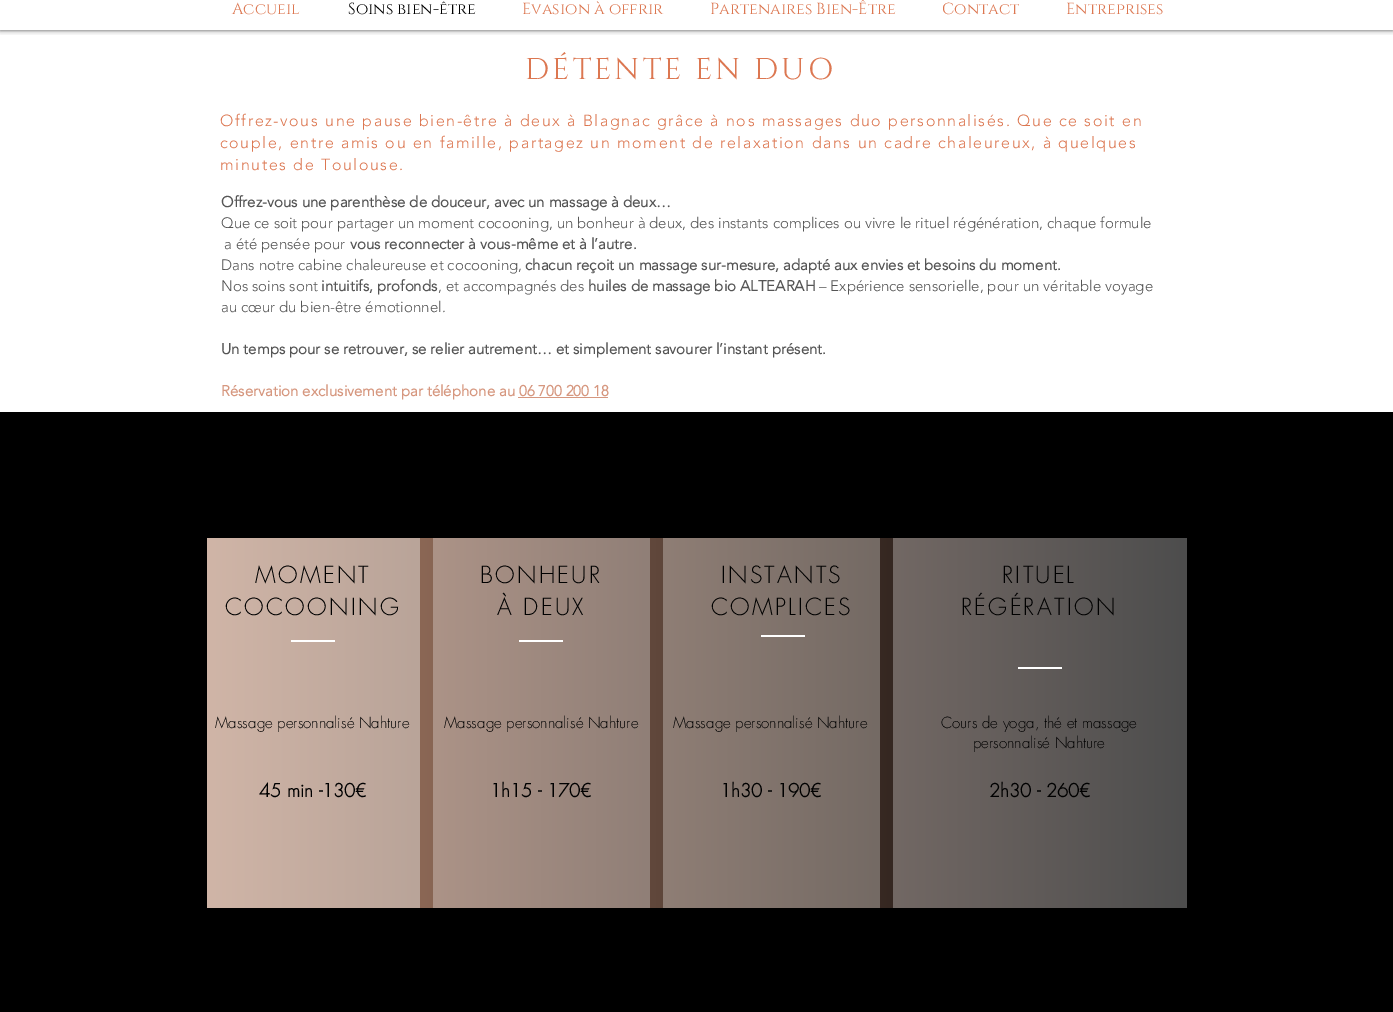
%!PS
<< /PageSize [1393 1012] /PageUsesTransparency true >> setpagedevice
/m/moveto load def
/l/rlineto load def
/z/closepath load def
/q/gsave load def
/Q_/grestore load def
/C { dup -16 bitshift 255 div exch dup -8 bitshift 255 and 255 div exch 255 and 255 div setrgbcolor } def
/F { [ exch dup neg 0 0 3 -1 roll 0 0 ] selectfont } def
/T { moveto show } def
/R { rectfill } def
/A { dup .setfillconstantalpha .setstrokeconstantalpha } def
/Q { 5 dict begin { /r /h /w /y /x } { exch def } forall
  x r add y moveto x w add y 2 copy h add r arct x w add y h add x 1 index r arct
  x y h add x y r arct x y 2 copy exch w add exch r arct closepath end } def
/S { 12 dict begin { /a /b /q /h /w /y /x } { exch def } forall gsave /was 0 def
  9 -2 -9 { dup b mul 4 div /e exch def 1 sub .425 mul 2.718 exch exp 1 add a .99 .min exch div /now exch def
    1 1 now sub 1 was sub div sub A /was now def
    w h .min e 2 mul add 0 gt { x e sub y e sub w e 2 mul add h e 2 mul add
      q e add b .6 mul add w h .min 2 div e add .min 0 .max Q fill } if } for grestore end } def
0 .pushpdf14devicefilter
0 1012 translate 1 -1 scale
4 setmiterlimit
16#FFFFFF C
0 0 1393 1012 R
q
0 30 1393 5 rectclip
16#000000 C
0 -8 1393 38 0 2.5 .7 S
Q_
/Cinzel-Regular 16 F
16#DC7751 C
(Accueil) 232 14 T
16#000000 C
(Soins bien-être) 348 14 T
16#DC7751 C
(Evasion à offrir) 522 14 T
(Partenaires Bien-Être) 710 14 T
(Contact) 942 14 T
(Entreprises) 1066 14 T
/Cinzel-Regular 30 F
525 79 m 3 0 (DÉTENTE EN DUO) ashow
/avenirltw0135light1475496-Light 16 F
220 126 m 1.6 0 (Offrez-vous une pause bien-être à deux à Blagnac grâce à nos massages duo personnalisés. Que ce soit en) ashow
220 148 m 1.6 0 (couple, entre amis ou en famille, partagez un moment de relaxation dans un cadre chaleureux, à quelques) ashow
220 170 m 1.6 0 (minutes de Toulouse.) ashow
/avenirltw0135light1475496-Bold 15 F
16#555555 C
(Offrez-vous une parenthèse de douceur, avec un massage à deux…) 221 207 T
/avenirltw0135light1475496-Light 15 F
(Que ce soit pour partager un moment cocooning, un bonheur à deux, des instants complices ou vivre le rituel régénération, chaque formule) 221 228 T
(a été pensée pour) 224 249 T
/avenirltw0135light1475496-Bold 15 F
(vous reconnecter à vous-même et à l’autre.) 350 249 T
/avenirltw0135light1475496-Light 15 F
(Dans notre cabine chaleureuse et cocooning,) 221 270 T
/avenirltw0135light1475496-Bold 15 F
(chacun reçoit un massage sur-mesure, adapté aux envies et besoins du moment.) 525 270 T
/avenirltw0135light1475496-Light 15 F
(Nos soins sont) 221 291 T
/avenirltw0135light1475496-Bold 15 F
(intuitifs, profonds) 321 291 T
/avenirltw0135light1475496-Light 15 F
(, et accompagnés des) 438 291 T
/avenirltw0135light1475496-Bold 15 F
(huiles de massage bio ALTEARAH) 588 291 T
/avenirltw0135light1475496-Light 15 F
(– Expérience sensorielle, pour un véritable voyage) 819 291 T
(au cœur du bien-être émotionnel.) 221 312 T
/avenirltw0135light1475496-Bold 15 F
(Un temps pour se retrouver, se relier autrement… et simplement savourer l’instant présent.) 221 354 T
16#D6977F C
(Réservation exclusivement par téléphone au 06 700 200 18) 221 396 T
518 397 90 1 R
16#000000 C
0 412 1393 600 R
q 420 538 m 473 0 l 0 370 l -473 0 l z clip newpath
<< /ShadingType 2 /ColorSpace /DeviceRGB /Coords [207 723 1187 723] /Extend [true true] /Function << /FunctionType 2 /Domain [0 1] /C0 [.694 .514 .427] /C1 [0 0 0] /N 1 >> >> shfill Q_
q 893 538 m 294 0 l 0 370 l -294 0 l z clip newpath
<< /ShadingType 2 /ColorSpace /DeviceRGB /Coords [207 723 1187 723] /Extend [true true] /Function << /FunctionType 2 /Domain [0 1] /C0 [.784 .659 .6] /C1 [.302 .302 .302] /N 1 >> >> shfill Q_
q 663 538 m 217 0 l 0 370 l -217 0 l z clip newpath
<< /ShadingType 2 /ColorSpace /DeviceRGB /Coords [207 723 1187 723] /Extend [true true] /Function << /FunctionType 2 /Domain [0 1] /C0 [.784 .659 .6] /C1 [.302 .302 .298] /N 1 >> >> shfill Q_
q 433 538 m 217 0 l 0 370 l -217 0 l z clip newpath
<< /ShadingType 2 /ColorSpace /DeviceRGB /Coords [207 723 1187 723] /Extend [true true] /Function << /FunctionType 2 /Domain [0 1] /C0 [.784 .659 .6] /C1 [.302 .302 .302] /N 1 >> >> shfill Q_
q 207 538 m 213 0 l 0 370 l -213 0 l z clip newpath
<< /ShadingType 2 /ColorSpace /DeviceRGB /Coords [207 723 1187 723] /Extend [true true] /Function << /FunctionType 2 /Domain [0 1] /C0 [.816 .71 .655] /C1 [.4 .4 .4] /N 1 >> >> shfill Q_
/futura-Light 23 F
255 583 m 2.25 0 (MOMENT) ashow
225 615 m 2.25 0 (COCOONING) ashow
16#FFFFFF C
291 640 44 2 R
/futura-Light 15 F
16#000000 C
(Massage personnalisé Nahture) 215 728 T
/futura-Bold 18 F
(45 min -130€) 259 797 T
/futura-Light 23 F
480 583 m 2.25 0 (BONHEUR) ashow
497 615 m 2.25 0 (À DEUX) ashow
16#FFFFFF C
519 640 44 2 R
/futura-Light 15 F
16#000000 C
(Massage personnalisé Nahture) 444 728 T
/futura-Bold 18 F
(1h15 - 170€) 490 797 T
/futura-Light 23 F
721 583 m 2.25 0 (INSTANTS) ashow
711 615 m 2.25 0 (COMPLICES) ashow
16#FFFFFF C
761 635 44 2 R
/futura-Light 15 F
16#000000 C
(Massage personnalisé Nahture) 673 728 T
/futura-Bold 18 F
(1h30 - 190€) 720 797 T
/futura-Light 23 F
1002 583 m 2.25 0 (RITUEL) ashow
961 615 m 2.25 0 (RÉGÉRATION) ashow
16#FFFFFF C
1018 667 44 2 R
/futura-Light 15 F
16#000000 C
(Cours de yoga, thé et massage) 941 728 T
(personnalisé Nahture) 973 748 T
/futura-Bold 18 F
(2h30 - 260€) 989 797 T
.poppdf14devicefilter showpage
